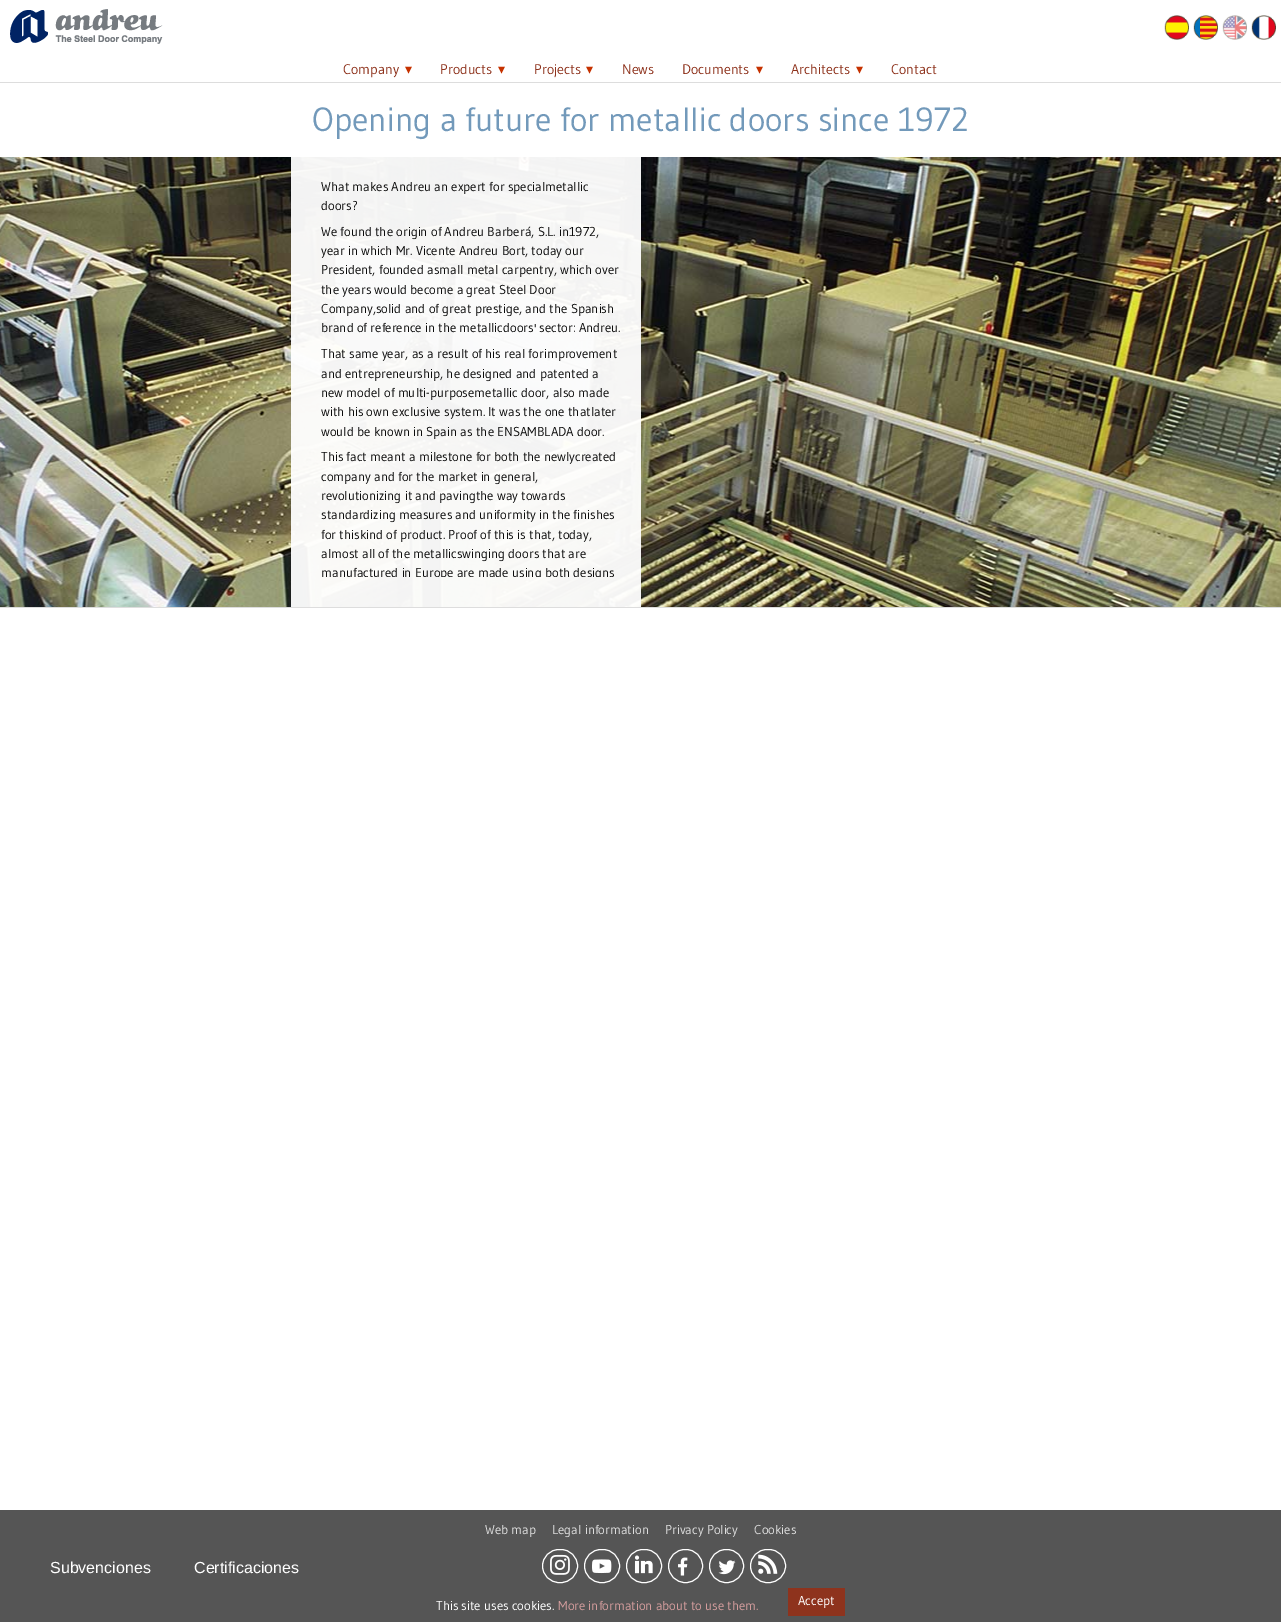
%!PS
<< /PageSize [1281 1622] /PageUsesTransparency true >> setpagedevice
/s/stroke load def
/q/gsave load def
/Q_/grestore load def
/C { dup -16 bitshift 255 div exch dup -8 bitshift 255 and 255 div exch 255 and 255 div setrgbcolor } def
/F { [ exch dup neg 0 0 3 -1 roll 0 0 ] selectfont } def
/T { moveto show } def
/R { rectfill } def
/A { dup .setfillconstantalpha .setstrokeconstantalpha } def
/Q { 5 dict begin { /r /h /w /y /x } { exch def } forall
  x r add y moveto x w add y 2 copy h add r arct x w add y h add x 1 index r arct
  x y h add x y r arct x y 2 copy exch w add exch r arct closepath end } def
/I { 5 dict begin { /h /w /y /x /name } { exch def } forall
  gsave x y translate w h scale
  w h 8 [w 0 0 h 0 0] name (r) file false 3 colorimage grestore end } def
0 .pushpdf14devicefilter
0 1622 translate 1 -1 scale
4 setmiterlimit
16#FFFFFF C
0 0 1281 1622 R
(1.rgb) 10 9 153 35 I
(2.rgb) 1164 15 25 25 I
(3.rgb) 1193 15 25 25 I
(4.rgb) 1222 15 25 25 I
(5.rgb) 1251 15 25 25 I
16#DDDDDD C
0 82 1281 1 R
/Gudea-Regular 14 F
16#8E331D C
(Company) 343 74 T
/DejaVuSans-Regular 14 F
16#C63200 C
(▾) 405 74 T
/Gudea-Regular 14 F
16#8E331D C
(Products) 440 74 T
/DejaVuSans-Regular 14 F
16#C63200 C
(▾) 498 74 T
/Gudea-Regular 14 F
16#8E331D C
(Projects) 534 74 T
/DejaVuSans-Regular 14 F
16#C63200 C
(▾) 586 74 T
/Gudea-Regular 14 F
16#8E331D C
(News) 622 74 T
(Documents) 682 74 T
/DejaVuSans-Regular 14 F
16#C63200 C
(▾) 756 74 T
/Gudea-Regular 14 F
16#8E331D C
(Architects) 791 74 T
/DejaVuSans-Regular 14 F
16#C63200 C
(▾) 856 74 T
/Gudea-Regular 14 F
16#8E331D C
(Contact) 891 74 T
/Gudea-Regular 33.5 F
16#7299BA C
(Opening a future for metallic doors since 1972) 312 131 T
(6.rgb) 0 157 1281 450 I
16#DDDDDD C
0 607 1281 1 R
0.95 A
16#FFFFFF C
291 157 350 450 R
/Gudea-Regular 12.9 F
1 A
16#0C0C0C C
(What makes Andreu an expert for specialmetallic) 321 191 T
(doors?) 321 210 T
(We found the origin of Andreu Barberá, S.L. in1972,) 321 236 T
(year in which Mr. Vicente Andreu Bort, today our) 321 255 T
(President, founded asmall metal carpentry, which over) 321 274 T
(the years would become a great Steel Door) 321 294 T
(Company,solid and of great prestige, and the Spanish) 321 313 T
(brand of reference in the metallicdoors' sector: Andreu.) 321 332 T
(That same year, as a result of his real forimprovement) 321 358 T
(and entrepreneurship, he designed and patented a) 321 378 T
(new model of multi-purposemetallic door, also made) 321 397 T
(with his own exclusive system. It was the one thatlater) 321 416 T
(would be known in Spain as the ENSAMBLADA door.) 321 436 T
(This fact meant a milestone for both the newlycreated) 321 461 T
(company and for the market in general,) 321 481 T
(revolutionizing it and pavingthe way towards) 321 500 T
(standardizing measures and uniformity in the finishes) 321 519 T
(for thiskind of product. Proof of this is that, today,) 321 539 T
(almost all of the metallicswinging doors that are) 321 558 T
q
291 177 350 400 rectclip
(manufactured in Europe are made using both designs) 321 577 T
Q_
16#555555 C
0 1510 1281 112 R
16#DDDDDD C
(Web map) 485 1534 T
(Legal information) 552 1534 T
(Privacy Policy) 665 1534 T
(Cookies) 754 1534 T
/LiberationSans-Regular 16 F
16#FFFFFF C
(Subvenciones) 50 1573 T
(Certificaciones) 194 1573 T
542.5 1549.5 35 33 16.5 Q s
(7.rgb) 550 1554 20 21 I
584.5 1549.5 35 33 16.5 Q s
(8.rgb) 592 1559 20 15 I
626.5 1549.5 35 33 16.5 Q s
(9.rgb) 634 1555 19 19 I
668.5 1549.5 34 33 16.5 Q s
(10.rgb) 678 1557 10 19 I
709.5 1549.5 34 33 16.5 Q s
(11.rgb) 718 1560 18 15 I
750.5 1549.5 35 33 16.5 Q s
(12.rgb) 758 1554 20 20 I
/Gudea-Regular 12.9 F
(This site uses cookies.) 436 1610 T
16#D39C9C C
(More information about to use them.) 558 1610 T
16#8E331D C
788 1588 57 28 R
16#FFFFFF C
(Accept) 798 1605 T
.poppdf14devicefilter showpage
